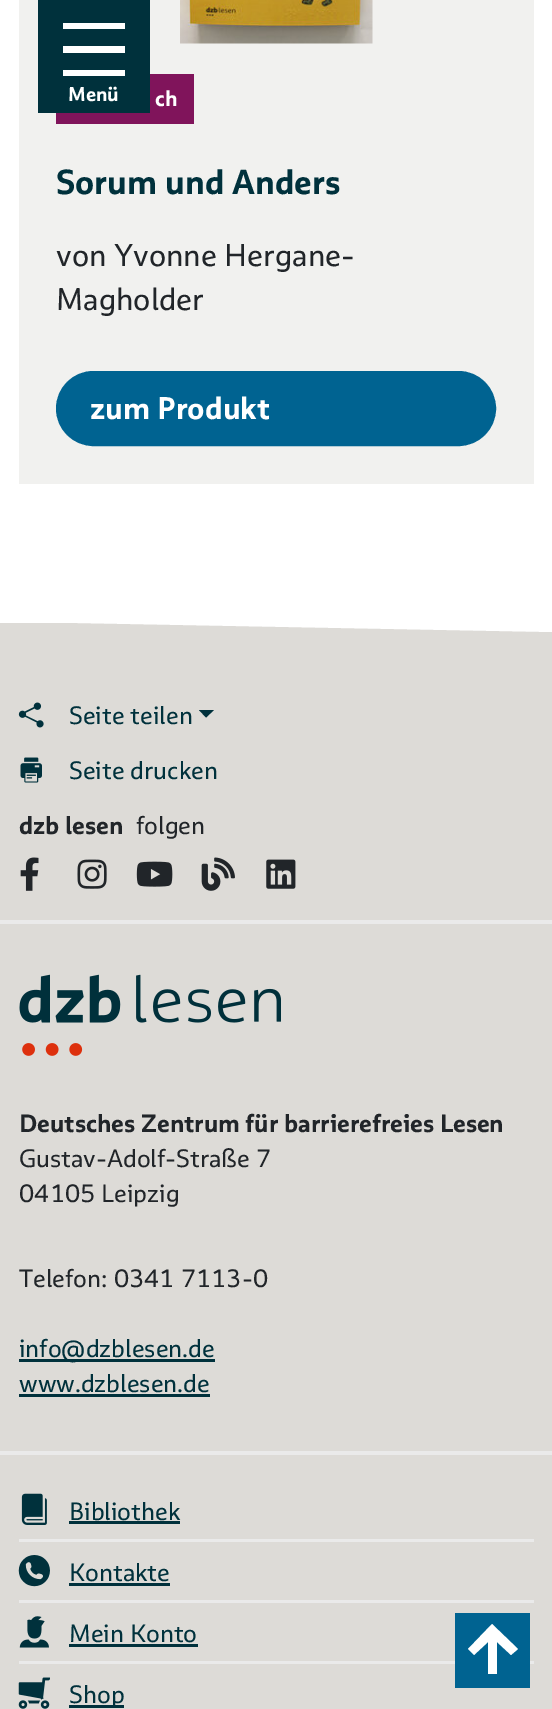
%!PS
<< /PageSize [552 1709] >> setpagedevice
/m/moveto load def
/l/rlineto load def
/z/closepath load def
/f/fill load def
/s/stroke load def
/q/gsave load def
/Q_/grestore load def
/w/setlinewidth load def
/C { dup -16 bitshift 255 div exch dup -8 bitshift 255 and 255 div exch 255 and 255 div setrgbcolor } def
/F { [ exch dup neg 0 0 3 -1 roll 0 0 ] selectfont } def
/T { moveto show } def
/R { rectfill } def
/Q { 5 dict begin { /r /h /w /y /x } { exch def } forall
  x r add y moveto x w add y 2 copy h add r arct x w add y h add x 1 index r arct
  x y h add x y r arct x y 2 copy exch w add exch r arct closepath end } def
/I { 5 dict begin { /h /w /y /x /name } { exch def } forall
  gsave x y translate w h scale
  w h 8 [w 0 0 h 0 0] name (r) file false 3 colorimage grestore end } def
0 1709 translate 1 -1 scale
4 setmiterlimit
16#FFFFFF C
0 0 552 1709 R
16#F1F1EF C
19 0 515 484 R
16#80145B C
56 74 138 50 R
16#00313C C
38 0 112 113 R
16#FFFFFF C
63 23 62 6 R
63 46 62 7 R
63 70 62 6 R
/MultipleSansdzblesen-Bold 20 F
(Menü) 68 101 T
(1.rgb) 180 0 193 44 I
/MultipleSansdzblesen-Bold 22 F
(ch) 155 106 T
/MultipleSansdzblesen-Bold 34.5 F
16#00313C C
(Sorum und Anders) 56 194 T
/MultipleSansdzblesen-Regular 31.25 F
16#212529 C
(von Yvonne Hergane-) 56 266 T
(Magholder) 56 310 T
16#006391 C
57.5 372.5 437 72 36 Q q f Q_
3 w
s
/MultipleSansdzblesen-Bold 31.25 F
16#FFFFFF C
(zum Produkt) 90 419 T
16#DDDBD7 C
0 623 552 1086 R
16#FFFFFF C
25 622 m 527 0 l 0 10 l z f
16#EAEAEA C
0 920 552 4 R
(2.rgb) 18 702 26 26 I
/MultipleSansdzblesen-Regular 25 F
16#00313C C
(Seite teilen) 69 724 T
199 710 m 15 0 l -8 7.5 l z f
(3.rgb) 20 757 22 26 I
(Seite drucken) 69 779 T
/MultipleSansdzblesen-Bold 25 F
16#212529 C
(dzb lesen) 19 834 T
/MultipleSansdzblesen-Regular 25 F
(folgen) 136 834 T
(4.rgb) 20 857 19 34 I
(5.rgb) 77 859 30 30 I
(6.rgb) 136 861 37 26 I
(7.rgb) 201 857 34 34 I
(8.rgb) 266 859 30 30 I
(9.rgb) 19 974 262 82 I
/MultipleSansdzblesen-Bold 25 F
(Deutsches Zentrum für barrierefreies Lesen) 19 1132 T
/MultipleSansdzblesen-Regular 25 F
(Gustav-Adolf-Straße 7) 19 1167 T
(04105 Leipzig) 19 1202 T
(Telefon: 0341 7113-0) 19 1287 T
16#00313C C
19 1359 196 3 R
(info@dzblesen.de) 19 1357 T
(www.dzblesen.de) 19 1392 T
19 1394 191 3 R
16#EAEAEA C
0 1451 552 4 R
19 1539 515 3 R
(10.rgb) 21 1493 26 32 I
16#00313C C
(Bibliothek) 69 1520 T
69 1521 111 3 R
16#EAEAEA C
19 1600 515 3 R
(11.rgb) 18 1555 32 32 I
16#00313C C
(Kontakte) 69 1581 T
69 1583 101 3 R
16#EAEAEA C
19 1661 515 3 R
(12.rgb) 19 1616 30 32 I
16#00313C C
(Mein Konto) 69 1642 T
69 1644 129 3 R
(13.rgb) 18 1677 32 32 I
69 1705 55 3 R
(Shop) 69 1703 T
16#006391 C
455 1613 75 75 R
16#FFFFFF C
511 1655 m -14 -13 l 0 32 l -9 0 l 0 -32 l -14 13 l -6 -6 l 24 -25 l 26 25 l z f
showpage
